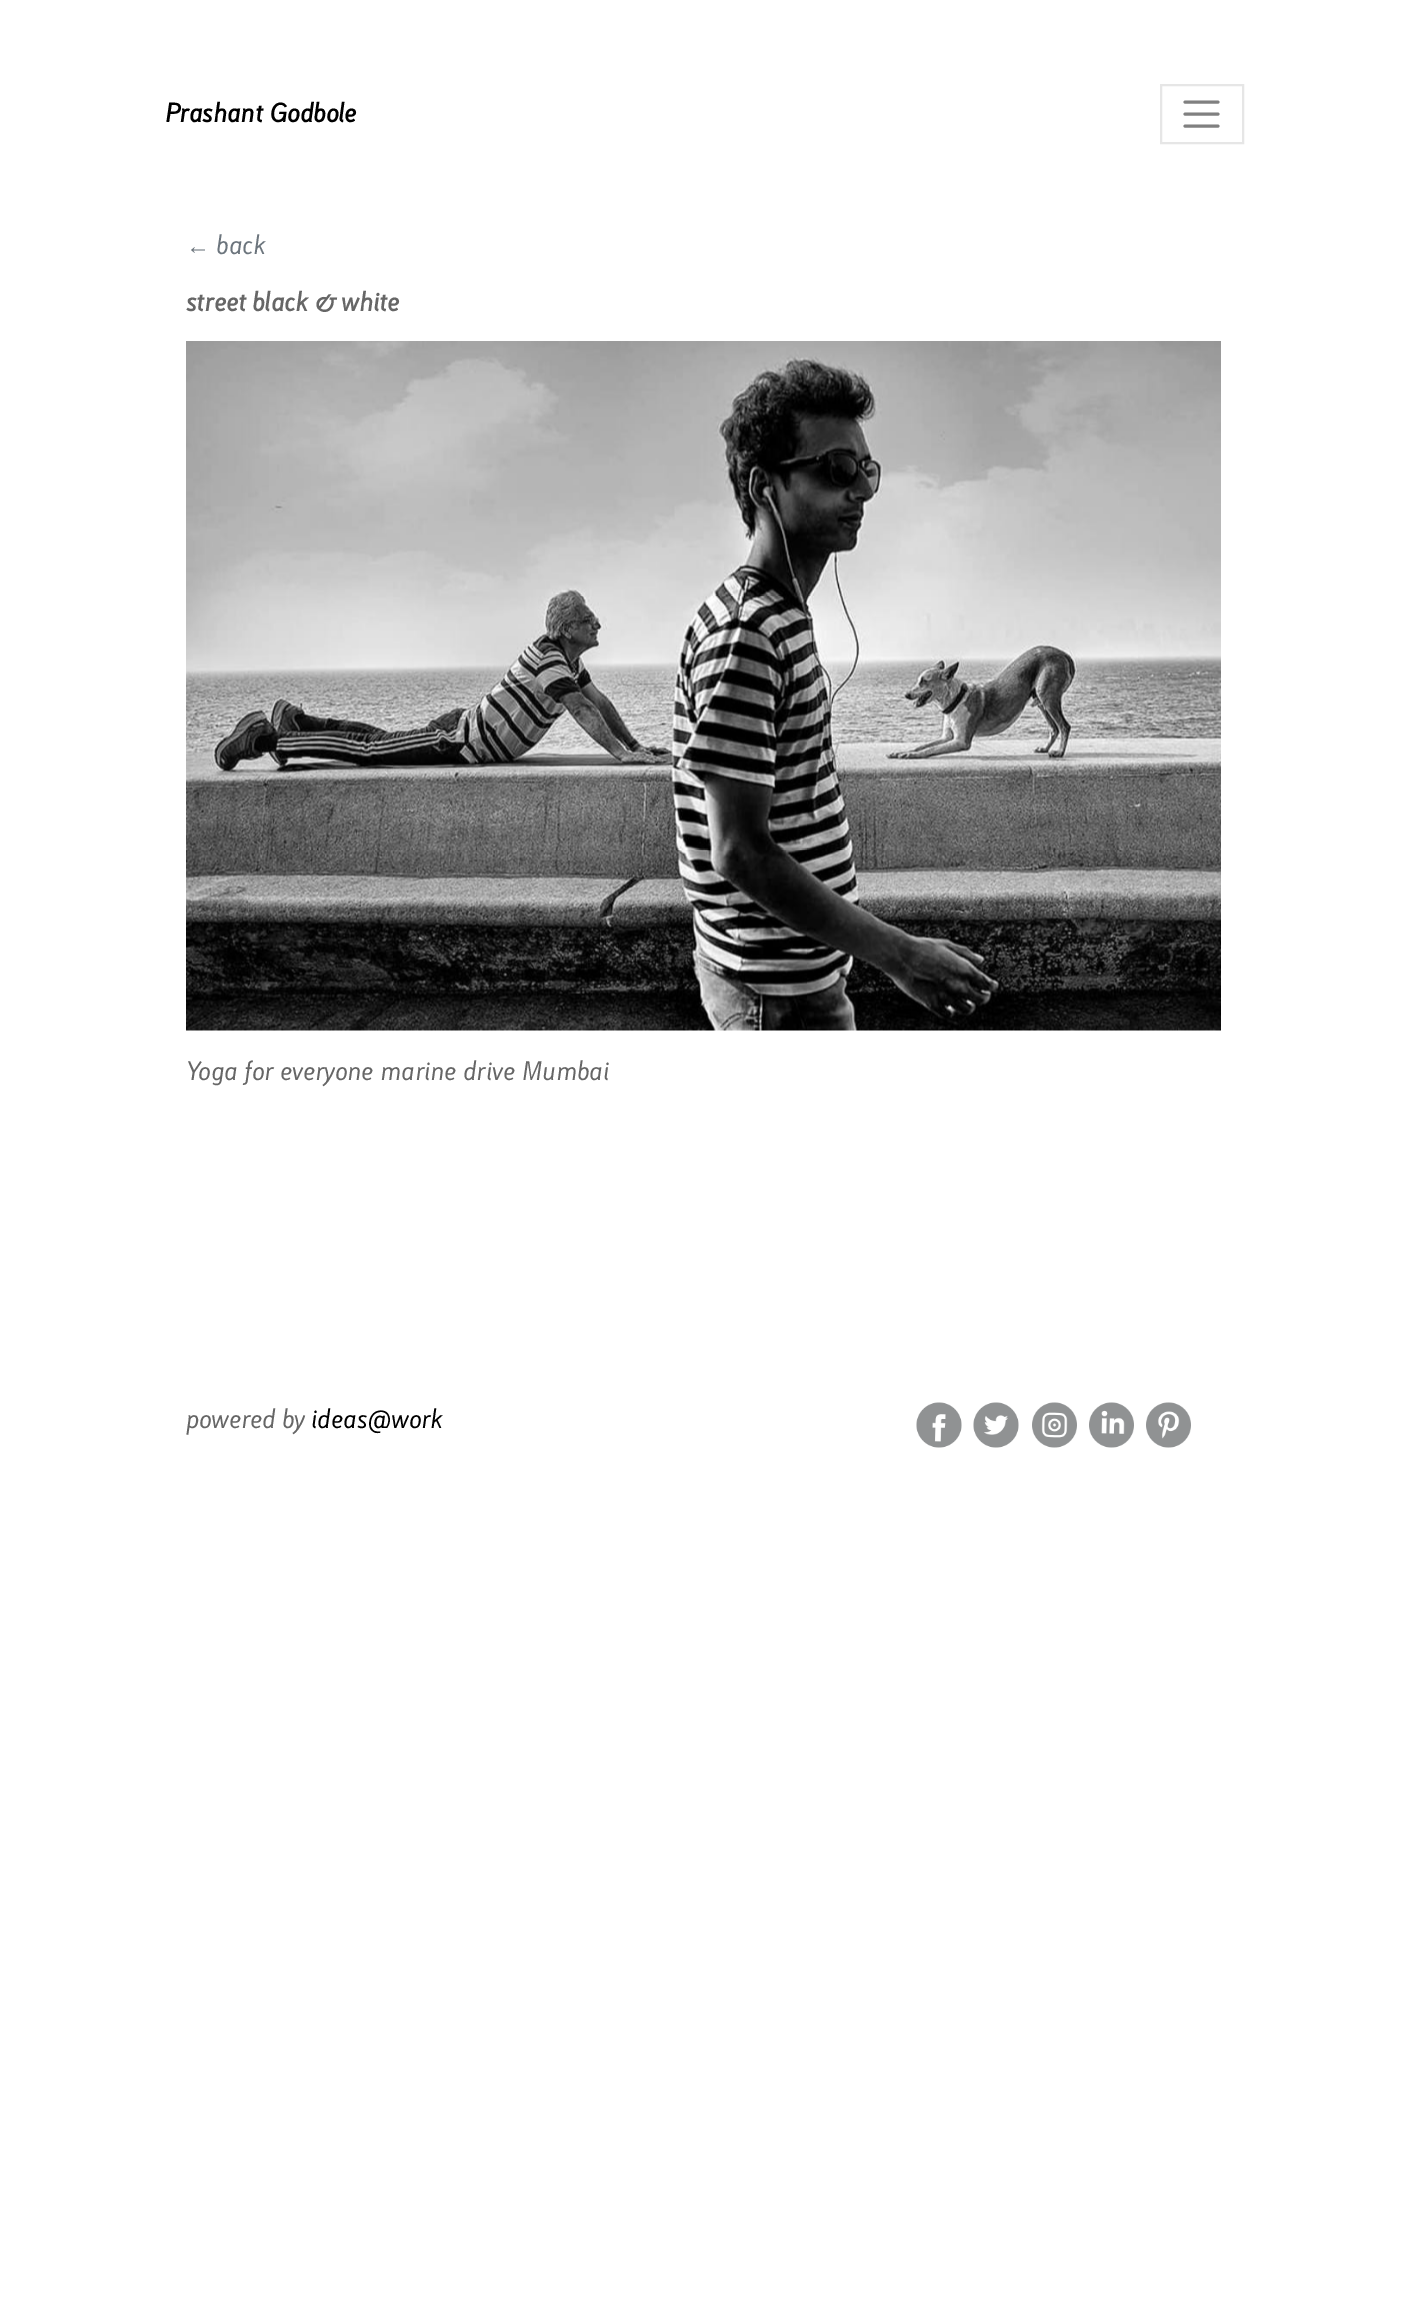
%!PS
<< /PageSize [1407 2319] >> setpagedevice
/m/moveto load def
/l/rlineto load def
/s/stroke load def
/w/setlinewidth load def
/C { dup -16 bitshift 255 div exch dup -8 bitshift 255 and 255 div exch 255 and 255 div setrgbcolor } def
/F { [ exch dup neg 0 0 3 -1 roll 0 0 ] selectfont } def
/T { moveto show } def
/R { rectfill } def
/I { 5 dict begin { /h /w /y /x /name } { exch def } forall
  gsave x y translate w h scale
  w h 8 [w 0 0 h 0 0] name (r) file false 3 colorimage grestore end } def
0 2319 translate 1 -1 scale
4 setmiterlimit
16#FFFFFF C
0 0 1407 2319 R
/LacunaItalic-BoldItalic 24 F
16#000000 C
(Prashant Godbole) 164 122 T
16#E6E6E6 C
2 w
1161 85 82 58 rectstroke
16#808080 C
3 w
1 setlinecap
1185 102 m 33 0 l 1185 114 m 33 0 l 1185 126 m 33 0 l s
/LiberationSans-Italic 24 F
16#6C757D C
(←) 186 254 T
/LacunaItalic-Italic 24 F
(back) 216 254 T
/LacunaItalic-BoldItalic 24 F
16#666666 C
(street black & white) 186 311 T
(1.rgb) 186 341 1035 690 I
/LacunaItalic-Italic 24 F
(Yoga for everyone marine drive Mumbai) 186 1080 T
(powered by) 186 1428 T
16#000000 C
(ideas@work) 311 1428 T
(2.rgb) 916 1402 46 46 I
(3.rgb) 973 1402 46 46 I
(4.rgb) 1032 1402 45 46 I
(5.rgb) 1089 1402 45 46 I
(6.rgb) 1146 1402 45 46 I
showpage
